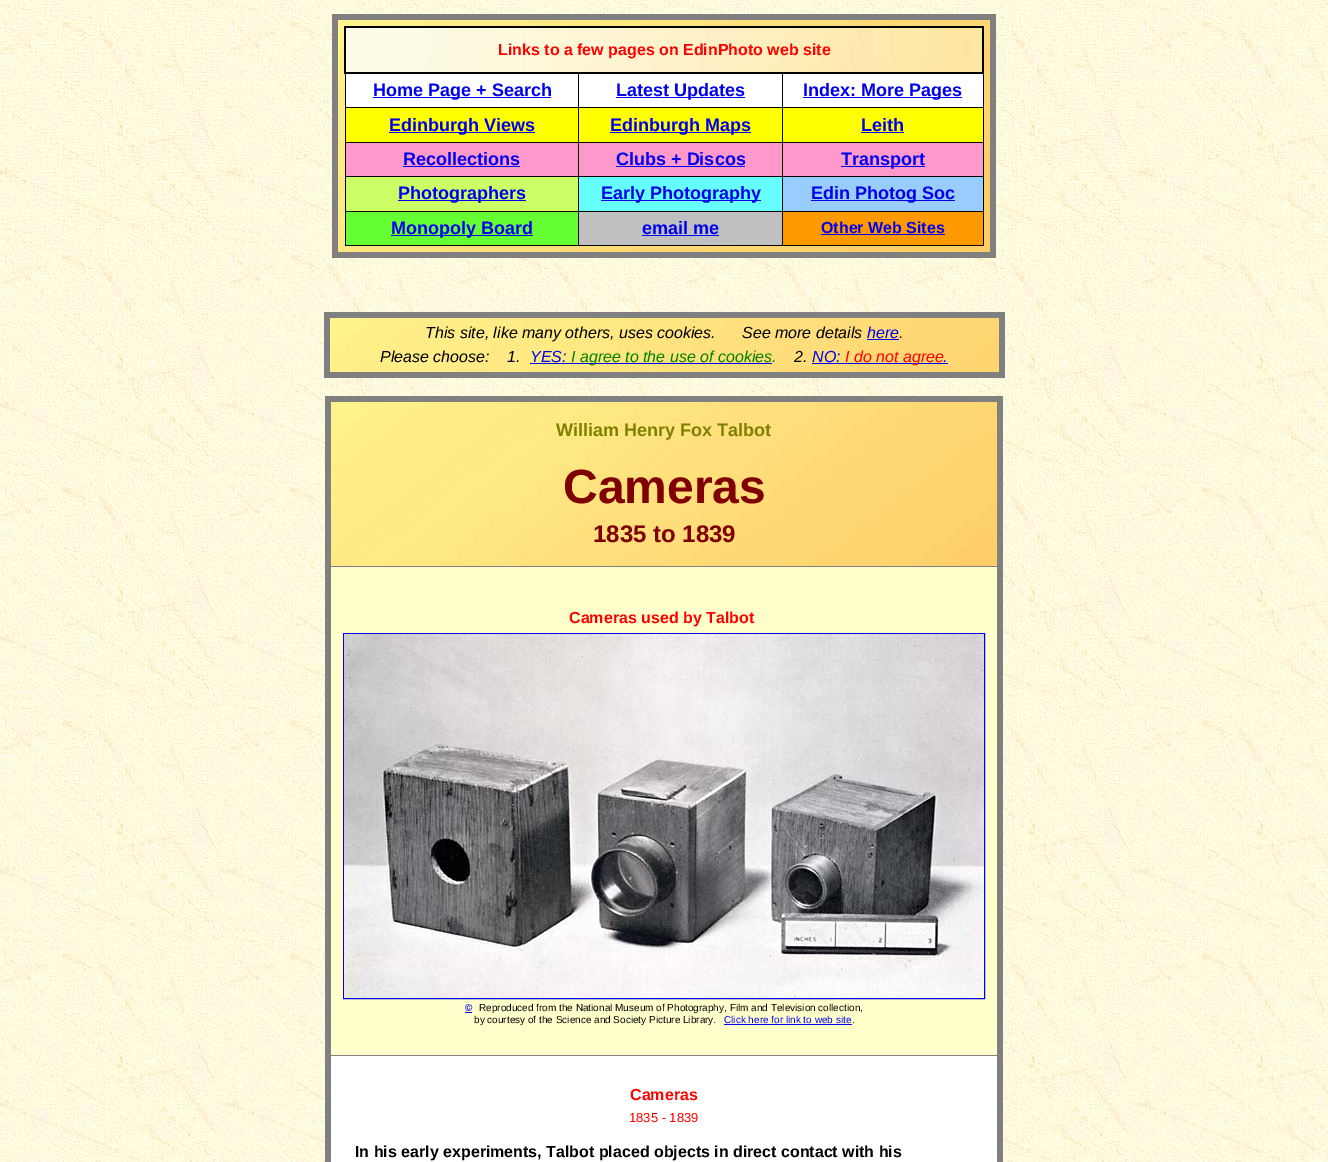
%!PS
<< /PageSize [1328 1162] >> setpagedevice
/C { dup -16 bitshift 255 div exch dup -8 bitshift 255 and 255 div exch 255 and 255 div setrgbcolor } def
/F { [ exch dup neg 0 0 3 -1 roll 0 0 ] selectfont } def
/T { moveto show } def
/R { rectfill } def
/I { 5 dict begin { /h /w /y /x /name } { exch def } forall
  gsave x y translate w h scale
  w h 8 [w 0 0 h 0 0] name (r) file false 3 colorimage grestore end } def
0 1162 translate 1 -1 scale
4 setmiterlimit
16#FFFFFF C
0 0 1328 1162 R
(1.rgb) 0 0 1328 1162 I
16#808080 C
332 14 664 6 R
990 14 6 244 R
332 252 664 6 R
332 14 6 244 R
(2.rgb) 338 20 652 232 I
(3.rgb) 346 28 636 44 I
16#000000 C
344 26 640 2 R
782 107 202 1 R
782 142 202 1 R
782 176 202 1 R
782 211 202 1 R
983 211 1 35 R
983 176 1 36 R
983 142 1 35 R
983 72 1 71 R
982 26 2 48 R
782 245 202 1 R
782 211 1 35 R
578 211 205 1 R
782 176 1 36 R
578 176 205 1 R
782 142 1 35 R
578 142 205 1 R
782 107 1 36 R
578 107 205 1 R
578 245 205 1 R
578 211 1 35 R
345 211 234 1 R
578 176 1 36 R
345 176 234 1 R
578 142 1 35 R
345 142 234 1 R
578 107 1 36 R
345 107 234 1 R
578 72 1 36 R
782 72 1 36 R
345 245 234 1 R
345 211 1 35 R
345 176 1 36 R
345 142 1 35 R
345 72 1 71 R
344 72 640 2 R
344 26 2 48 R
/LiberationSans-Bold 16 F
16#FF0000 C
(Links to a few pages on EdinPhoto web site) 498 55 T
16#FFFFFF C
346 74 232 33 R
16#0000EE C
373 97 178 1 R
/LiberationSans-Bold 18 F
(Home Page + Search) 373 96 T
16#FFFFFF C
579 74 203 33 R
16#0000EE C
616 97 129 1 R
(Latest Updates) 616 96 T
16#FFFFFF C
783 74 200 33 R
16#0000EE C
803 97 159 1 R
(Index: More Pages) 803 96 T
16#FFFF00 C
346 108 232 34 R
16#0000EE C
389 132 146 1 R
(Edinburgh Views) 389 131 T
16#FFFF00 C
579 108 203 34 R
16#0000EE C
610 132 141 1 R
(Edinburgh Maps) 610 131 T
16#FFFF00 C
783 108 200 34 R
16#0000EE C
(Leith) 861 131 T
861 132 43 1 R
16#FF99CC C
346 143 232 33 R
16#0000EE C
(Recollections) 403 165 T
403 166 117 1 R
16#FF99CC C
579 143 203 33 R
16#0000EE C
(Clubs + Discos) 616 165 T
616 166 129 1 R
16#FF99CC C
783 143 200 33 R
16#0000EE C
841 166 84 1 R
(Transport) 841 165 T
16#CCFF66 C
346 177 232 34 R
16#0000EE C
398 200 128 1 R
(Photographers) 398 199 T
16#66FFFF C
579 177 203 34 R
16#0000EE C
601 200 160 1 R
(Early Photography) 601 199 T
16#99CCFF C
783 177 200 34 R
16#0000EE C
811 200 144 1 R
(Edin Photog Soc) 811 199 T
16#66FF33 C
346 212 232 33 R
16#0000EE C
391 235 142 1 R
(Monopoly Board) 391 234 T
16#C0C0C0 C
579 212 203 33 R
16#0000EE C
(email me) 642 234 T
642 235 77 1 R
16#FF9900 C
783 212 200 33 R
/LiberationSans-Bold 16 F
16#0000EE C
(Other Web Sites) 821 233 T
821 234 124 1 R
16#808080 C
324 312 681 6 R
999 312 6 66 R
324 372 681 6 R
324 312 6 66 R
(4.rgb) 330 318 669 54 I
/LiberationSans-Italic 16 F
16#000000 C
(This site, like many others, uses cookies.) 425 338 T
(See more details) 742 338 T
16#0000EE C
(here) 867 338 T
16#800000 C
(.) 899 338 T
16#0000EE C
867 339 32 1 R
16#000000 C
(Please choose:    1.) 380 362 T
16#0000EE C
(YES:) 530 362 T
530 363 242 1 R
16#008000 C
(I agree to the use of cookies.) 571 362 T
16#000000 C
(2.) 794 362 T
16#0000EE C
(NO:) 812 362 T
812 363 136 1 R
16#FF0000 C
(I do not agree) 845 362 T
16#0000EE C
(.) 943 362 T
16#808080 C
325 396 678 6 R
328 566 673 1 R
328 1055 673 1 R
997 396 6 766 R
325 396 6 766 R
(5.rgb) 331 402 666 164 I
/LiberationSans-Bold 18 F
16#808000 C
(William Henry Fox Talbot) 556 436 T
/LiberationSans-Bold 48 F
16#800000 C
(Cameras) 563 503 T
/LiberationSans-Bold 24 F
(1835 to 1839) 593 542 T
16#FFFFCC C
331 567 666 488 R
/LiberationSans-Bold 16 F
16#FF0000 C
(Cameras used by Talbot) 569 623 T
16#0000EE C
343.5 633.5 641 365 rectstroke
(6.rgb) 344 634 640 364 I
/LiberationSans-Bold 10 F
(©) 465 1011 T
465 1012 7 1 R
/LiberationSans-Regular 10 F
16#000000 C
(Reproduced from the National Museum of Photography, Film and Television collection,) 479 1011 T
(by courtesy of the Science and Society Picture Library.) 474 1023 T
16#0000EE C
(Click here for link to web site) 724 1023 T
16#000000 C
(.) 852 1023 T
16#0000EE C
724 1024 128 1 R
16#FFFFFF C
331 1056 666 106 R
/LiberationSans-Bold 16 F
16#FF0000 C
(Cameras) 630 1100 T
/LiberationSans-Regular 13 F
(1835 - 1839) 629 1122 T
/LiberationSans-Bold 16 F
16#000000 C
(In his early experiments, Talbot placed objects in direct contact with his) 355 1157 T
showpage
